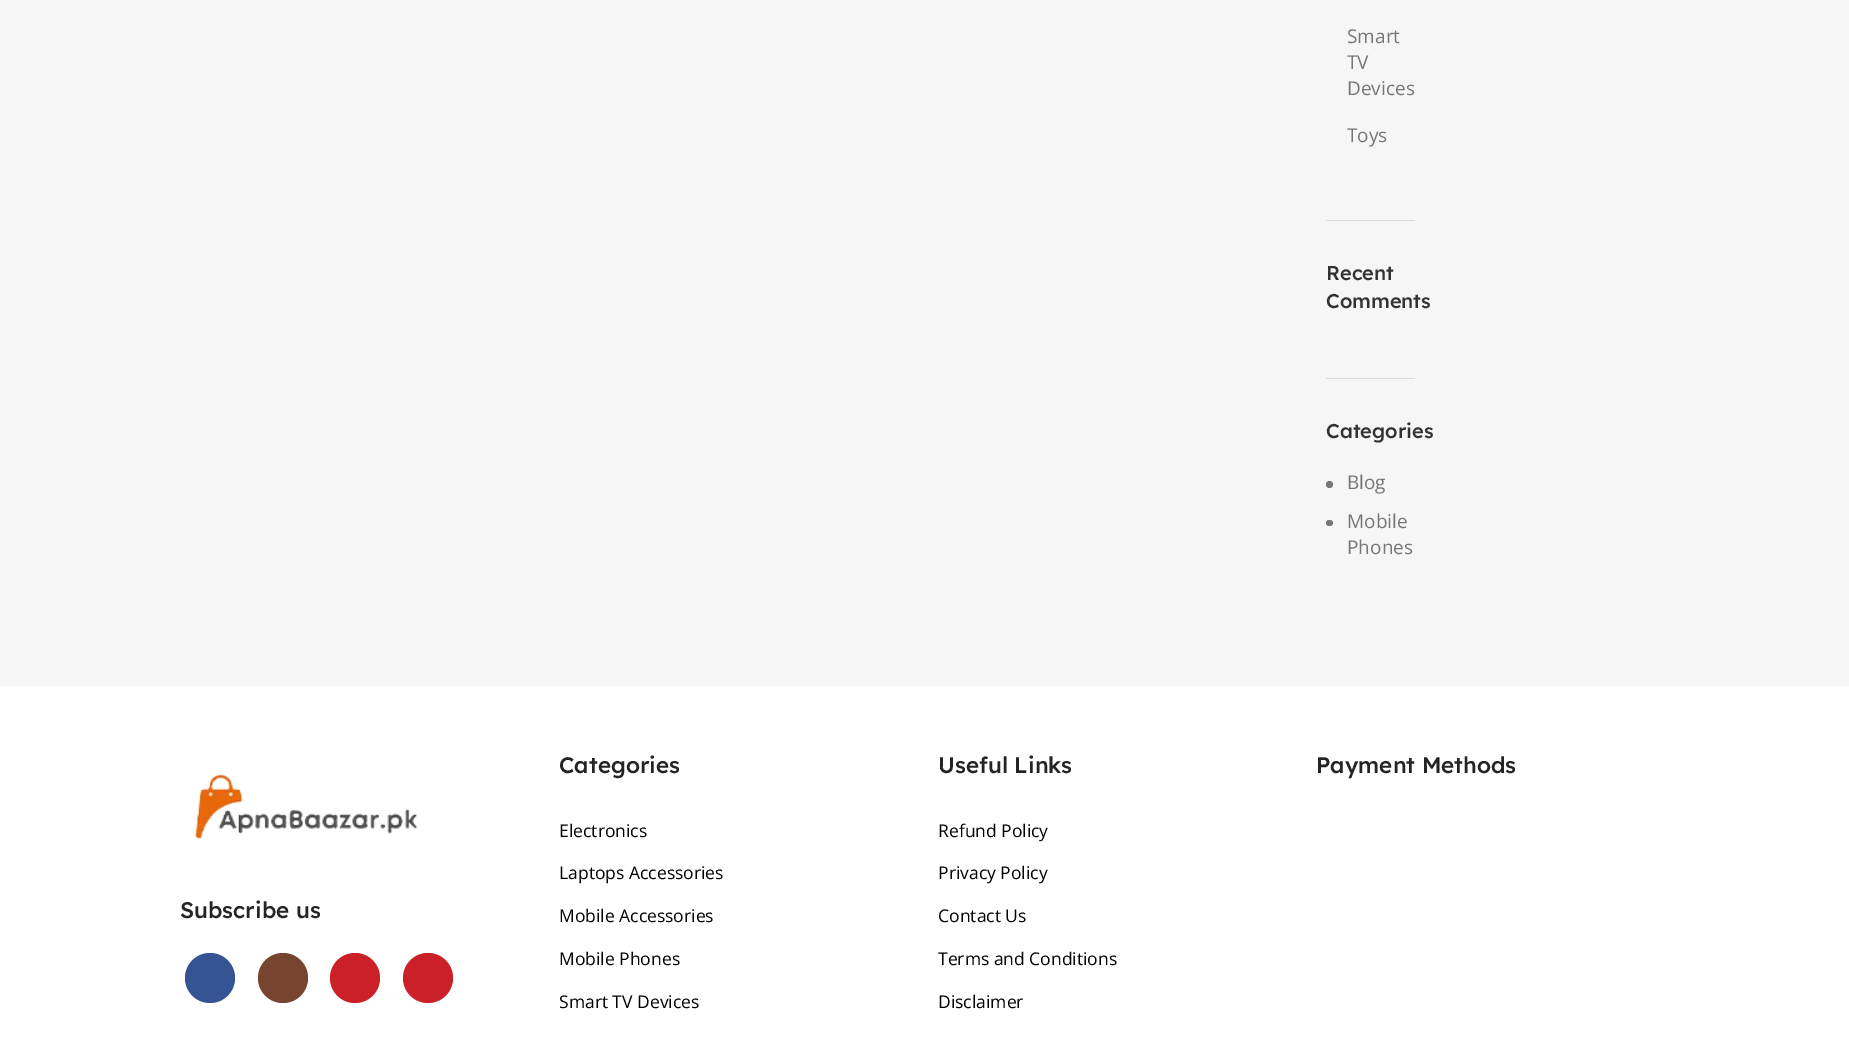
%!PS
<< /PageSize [1849 1052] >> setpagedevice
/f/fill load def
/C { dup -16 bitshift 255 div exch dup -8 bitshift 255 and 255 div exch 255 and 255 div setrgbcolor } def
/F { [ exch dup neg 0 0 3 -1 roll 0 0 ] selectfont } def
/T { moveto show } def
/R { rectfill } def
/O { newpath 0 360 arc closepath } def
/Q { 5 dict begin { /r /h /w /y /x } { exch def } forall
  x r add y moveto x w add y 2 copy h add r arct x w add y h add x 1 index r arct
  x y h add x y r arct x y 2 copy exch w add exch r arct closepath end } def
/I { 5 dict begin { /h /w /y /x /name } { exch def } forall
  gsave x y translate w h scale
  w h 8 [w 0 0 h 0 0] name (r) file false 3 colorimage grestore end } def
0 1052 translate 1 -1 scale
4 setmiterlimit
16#FFFFFF C
0 0 1849 1052 R
16#F6F6F6 C
0 0 1849 686 R
16#DCDCDC C
1326 220 89 1 R
/OpenSans-Regular 19 F
16#767676 C
(Smart) 1347 43 T
(TV) 1347 69 T
(Devices) 1347 95 T
(Toys) 1347 142 T
16#DCDCDC C
1326 378 89 1 R
/LexendDeca-Medium 20 F
16#333333 C
(Recent) 1326 280 T
(Comments) 1326 308 T
(Categories) 1326 438 T
16#777777 C
1329.5 484.5 3.5 O f
/OpenSans-Regular 19 F
16#767676 C
(Blog) 1347 489 T
16#777777 C
1326 520 7 6 3 Q f
16#767676 C
(Mobile) 1347 528 T
(Phones) 1347 554 T
/LexendDeca-Medium 22.5 F
16#242424 C
(Categories) 559 773 T
/OpenSans-Regular 17.5 F
16#000000 C
(Electronics) 559 837 T
(Laptops Accessories) 559 879 T
(Mobile Accessories) 559 922 T
(Mobile Phones) 559 965 T
(Smart TV Devices) 559 1008 T
/LexendDeca-Medium 22.5 F
16#242424 C
(Useful Links) 938 773 T
/OpenSans-Regular 17.5 F
16#000000 C
(Refund Policy) 938 837 T
(Privacy Policy) 938 879 T
(Contact Us) 938 922 T
(Terms and Conditions) 938 965 T
(Disclaimer) 938 1008 T
/LexendDeca-Medium 22.5 F
16#242424 C
(Payment Methods) 1316 773 T
(1.rgb) 194 774 224 65 I
(Subscribe us) 180 918 T
16#365493 C
210 978 25 O f
16#774430 C
283 978 25 O f
16#CB2027 C
355 978 25 O f
428 978 25 O f
showpage
